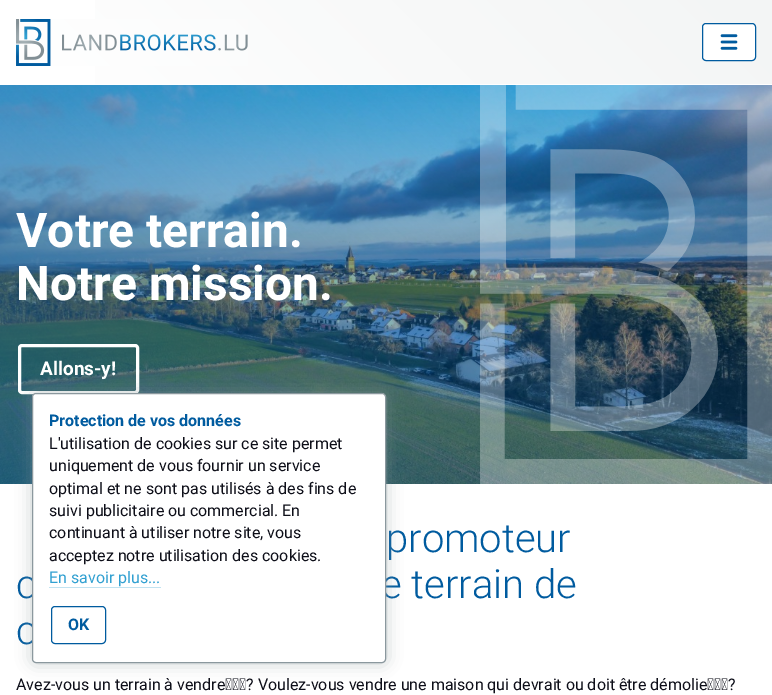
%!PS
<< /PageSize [772 695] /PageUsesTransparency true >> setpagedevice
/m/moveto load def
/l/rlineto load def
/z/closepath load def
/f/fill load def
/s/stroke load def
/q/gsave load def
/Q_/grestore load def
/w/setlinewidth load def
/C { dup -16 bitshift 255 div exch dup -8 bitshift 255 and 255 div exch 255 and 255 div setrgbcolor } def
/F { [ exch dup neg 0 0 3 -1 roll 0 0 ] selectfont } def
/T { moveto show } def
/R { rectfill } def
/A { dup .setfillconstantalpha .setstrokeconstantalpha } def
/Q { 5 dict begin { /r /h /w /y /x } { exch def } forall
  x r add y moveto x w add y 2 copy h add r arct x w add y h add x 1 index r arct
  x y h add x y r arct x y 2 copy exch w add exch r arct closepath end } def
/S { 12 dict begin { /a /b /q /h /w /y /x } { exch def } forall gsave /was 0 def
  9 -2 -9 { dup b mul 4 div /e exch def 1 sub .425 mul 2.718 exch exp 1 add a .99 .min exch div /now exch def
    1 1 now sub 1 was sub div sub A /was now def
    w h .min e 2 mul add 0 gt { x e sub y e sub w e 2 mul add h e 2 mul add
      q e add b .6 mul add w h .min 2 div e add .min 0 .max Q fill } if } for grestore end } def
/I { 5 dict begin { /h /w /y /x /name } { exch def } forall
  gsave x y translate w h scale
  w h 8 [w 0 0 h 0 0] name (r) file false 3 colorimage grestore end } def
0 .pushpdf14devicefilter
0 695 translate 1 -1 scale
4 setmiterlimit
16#FFFFFF C
0 0 772 695 R
q 95 0 m 677 0 l 0 84 l -677 0 l z clip newpath
<< /ShadingType 2 /ColorSpace /DeviceRGB /Coords [172 256 600 -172] /Extend [true true] /Function << /FunctionType 2 /Domain [0 1] /C0 [1 1 1] /C1 [.953 .961 .961] /N 1 >> >> shfill Q_
(1.rgb) 16 19 232 47 I
702.5 23.5 53 37 3.5 Q q f Q_
16#005B9F C
s
(2.rgb) 720 34 18 16 I
(3.rgb) 0 85 772 399 I
/Roboto-Bold 48 F
16#FFFFFF C
(Votre terrain.) 16 247 T
(Notre mission.) 16 300 T
3 w
19.5 345.5 118 47 2.5 Q s
/Roboto-Bold 19 F
(Allons-y!) 40 375 T
(4.rgb) 480 85 292 399 I
/Roboto-Light 40 F
16#005B9F C
(promoteur) 386 552 T
(c) 16 598 T
(e terrain de) 381 598 T
(c) 16 644 T
/Roboto-Regular 16 F
16#0E0F19 C
(Avez-vous un terrain à vendre ? Voulez-vous vendre une maison qui devrait ou doit être démolie ?) 16 690 T
16#8B989E C
32 393 354 270 4 8 .5 S
16#FFFFFF C
32.5 393.5 353 269 3.5 Q q f Q_
16#8B989E C
1 w
s
/Roboto-Bold 16 F
16#005B9F C
(Protection de vos données) 49 426 T
/Roboto-Regular 16 F
16#0E0F19 C
(L'utilisation de cookies sur ce site permet) 49 449 T
(uniquement de vous fournir un service) 49 471 T
(optimal et ne sont pas utilisés à des fins de) 49 494 T
(suivi publicitaire ou commercial. En) 49 516 T
(continuant à utiliser notre site, vous) 49 538 T
(acceptez notre utilisation des cookies.) 49 561 T
16#31A0D1 C
(En savoir plus...) 49 583 T
16#C1E3F1 C
49 587 112 1 R
16#005B9F C
51.5 606.5 54 37 3.5 Q s
/Roboto-Bold 16 F
(OK) 68 630 T
.poppdf14devicefilter showpage
